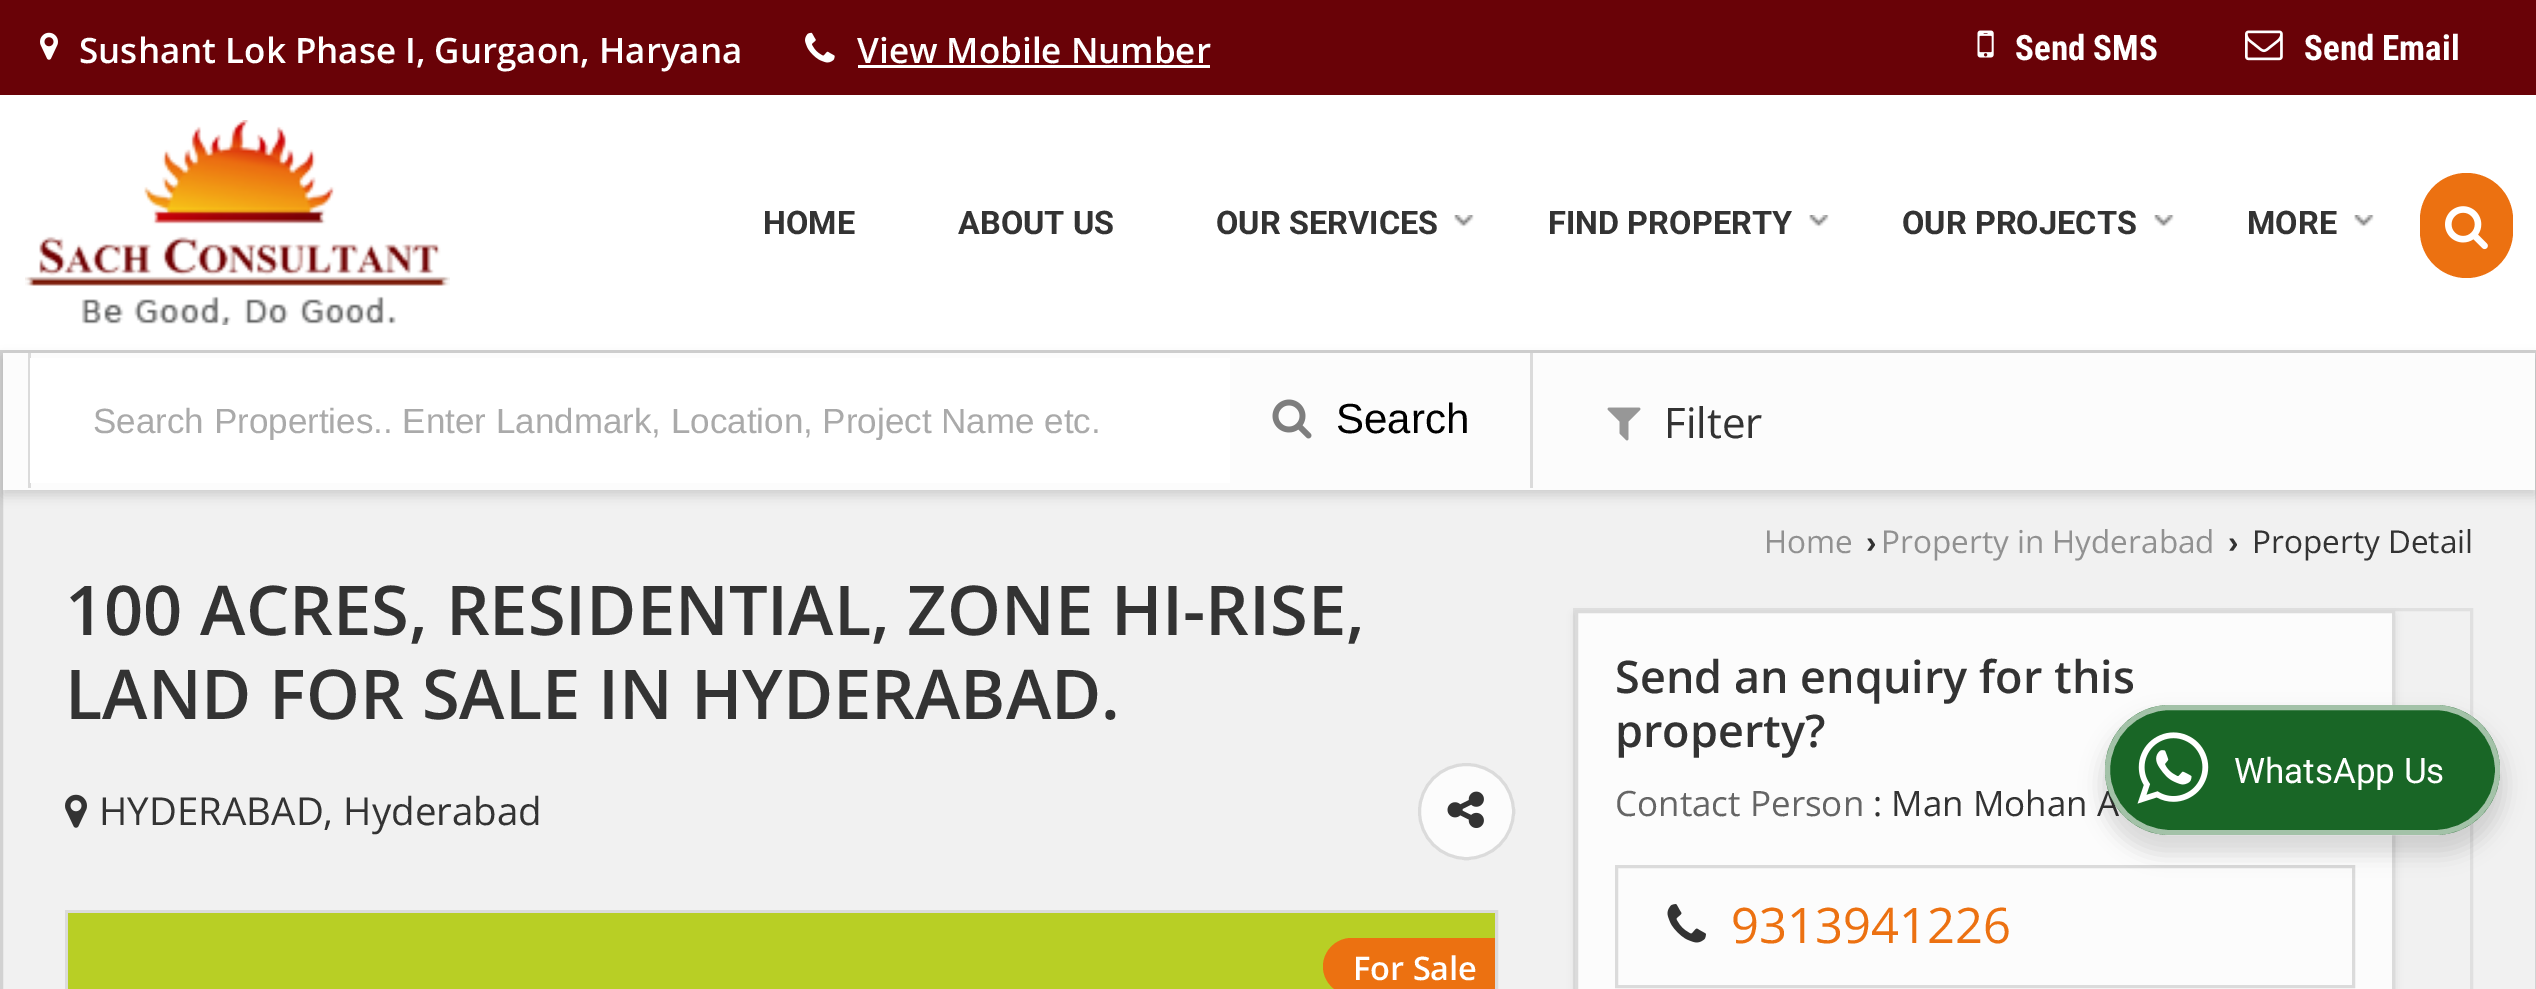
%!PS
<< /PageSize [2536 989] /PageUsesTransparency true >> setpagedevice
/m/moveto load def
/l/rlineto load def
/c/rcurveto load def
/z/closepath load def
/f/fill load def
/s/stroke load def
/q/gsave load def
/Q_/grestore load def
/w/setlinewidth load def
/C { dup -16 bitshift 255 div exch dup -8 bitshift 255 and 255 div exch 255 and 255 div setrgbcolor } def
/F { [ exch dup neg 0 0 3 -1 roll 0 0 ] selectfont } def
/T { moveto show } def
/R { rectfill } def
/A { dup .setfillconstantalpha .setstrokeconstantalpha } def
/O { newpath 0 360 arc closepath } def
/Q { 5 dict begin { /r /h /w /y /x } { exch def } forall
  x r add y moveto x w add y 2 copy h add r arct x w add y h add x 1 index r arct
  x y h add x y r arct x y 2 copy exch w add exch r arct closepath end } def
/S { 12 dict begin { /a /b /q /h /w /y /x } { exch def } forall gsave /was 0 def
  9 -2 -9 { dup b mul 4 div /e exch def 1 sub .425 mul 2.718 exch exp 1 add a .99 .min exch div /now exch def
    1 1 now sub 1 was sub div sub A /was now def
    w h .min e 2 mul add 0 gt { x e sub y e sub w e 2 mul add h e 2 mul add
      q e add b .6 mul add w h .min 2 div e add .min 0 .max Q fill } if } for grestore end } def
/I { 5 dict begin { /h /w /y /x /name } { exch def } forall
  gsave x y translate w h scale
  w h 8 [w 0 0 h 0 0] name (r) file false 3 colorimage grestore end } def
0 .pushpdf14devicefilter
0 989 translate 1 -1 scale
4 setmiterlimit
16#FFFFFF C
0 0 2536 989 R
16#690207 C
0 0 2536 95 R
(1.rgb) 40 32 18 28 I
/OpenSans-SemiBold 35 F
16#FFFFFF C
(Sushant Lok Phase I, Gurgaon, Haryana) 79 63 T
(2.rgb) 805 32 30 31 I
(View Mobile Number) 857 63 T
858 65 352 3 R
(3.rgb) 1977 30 17 28 I
/RobotoCondensed-Bold 35 F
(Send SMS) 2015 60 T
(4.rgb) 2245 30 38 31 I
(Send Email) 2304 60 T
(5.rgb) 25 120 425 205 I
/Roboto-Bold 32.5 F
16#333333 C
(HOME) 763 234 T
(ABOUT US) 958 234 T
(OUR SERVICES) 1216 234 T
(6.rgb) 1454 215 20 13 I
(FIND PROPERTY) 1548 234 T
(7.rgb) 1809 215 20 13 I
(OUR PROJECTS) 1902 234 T
(6.rgb) 2154 215 20 13 I
(MORE) 2247 234 T
(7.rgb) 2354 215 20 13 I
16#EC7111 C
2420 173 93 105 46.5 Q f
(8.rgb) 2445 206 43 44 I
16#F1F1F1 C
3 490 2532 499 R
16#D2D2D2 C
3 w
1.5 351.5 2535 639 rectstroke
16#000000 C
3 358 2532 137 0 6 .15 S
16#FCFCFC C
3 353 2532 137 R
16#DBDBDB C
1530 353 3 135 R
28 353 3 135 R
16#FFFFFF C
30 358 1200 125 R
q
93 400 1095 40 rectclip
/LiberationSans-Regular 35 F
16#AAAAAA C
(Search Properties.. Enter Landmark, Location, Project Name etc.) 93 433 T
Q_
(9.rgb) 1272 399 40 40 I
/LiberationSans-Regular 42 F
16#000000 C
(Search) 1336 433 T
(10.rgb) 1607 407 34 34 I
/OpenSans-Regular 42 F
16#333333 C
(Filter) 1664 438 T
/OpenSans-Regular 31.5 F
16#919191 C
(Home) 1764 553 T
/LiberationSans-Bold 31.5 F
16#333333 C
(›) 1866 553 T
/OpenSans-Regular 31.5 F
16#919191 C
(Property in Hyderabad) 1881 553 T
/LiberationSans-Bold 31.5 F
16#333333 C
(›) 2228 553 T
/OpenSans-Regular 31.5 F
(Property Detail) 2252 553 T
/OpenSans-SemiBold 68.6 F
(100 ACRES, RESIDENTIAL, ZONE HI-RISE,) 65 635 T
(LAND FOR SALE IN HYDERABAD.) 65 719 T
(11.rgb) 65 794 22 34 I
/OpenSans-Regular 38.5 F
(HYDERABAD, Hyderabad) 99 825 T
16#FCFCFC C
1466.5 811.5 48.5 O f
0.13 A
16#000000 C
1466.5 811.5 47 O s
1 A
(12.rgb) 1447 791 37 37 I
16#DBDBDB C
66.5 911.5 1430 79 rectstroke
16#B8CF25 C
68 913 1427 76 R
16#EC7111 C
1351.5 938 m 143.5 0 l 0 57 l -143.5 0 l -15.5 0 -28.5 -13 -28.5 -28.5 c 0 -15.5 13 -28.5 28.5 -28.5 c z f
/OpenSans-SemiBold 32.5 F
16#FFFFFF C
(For Sale) 1353 980 T
16#E0E0E0 C
1574.5 609.5 897 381 rectstroke
16#000000 C
1575 615 820 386 0 4 .08 S
16#FCFCFC C
1576.5 611.5 m 817 0 l 0 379 l -817 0 l z q f Q_
16#DBDBDB C
s
/OpenSans-SemiBold 45 F
16#333333 C
(Send an enquiry for this) 1615 693 T
(property?) 1615 747 T
/OpenSans-Regular 35 F
16#656565 C
(Contact Person) 1615 816 T
16#333333 C
(: Man Mohan A) 1873 816 T
16#DBDBDB C
1616.5 866.5 737 120 rectstroke
(13.rgb) 1667 904 39 39 I
/OpenSans-Regular 49 F
16#EC7111 C
(9313941226) 1731 943 T
16#000000 C
2100 715 405 140 70 10 .14 S
16#196626 C
2105 705 395 130 65 Q f
0.6 A
16#FFFFFF C
5 w
2107.5 707.5 390 125 62.5 Q s
1 A
(14.rgb) 2137 732 72 72 I
/Roboto-Regular 35 F
(WhatsApp Us) 2234 783 T
.poppdf14devicefilter showpage
